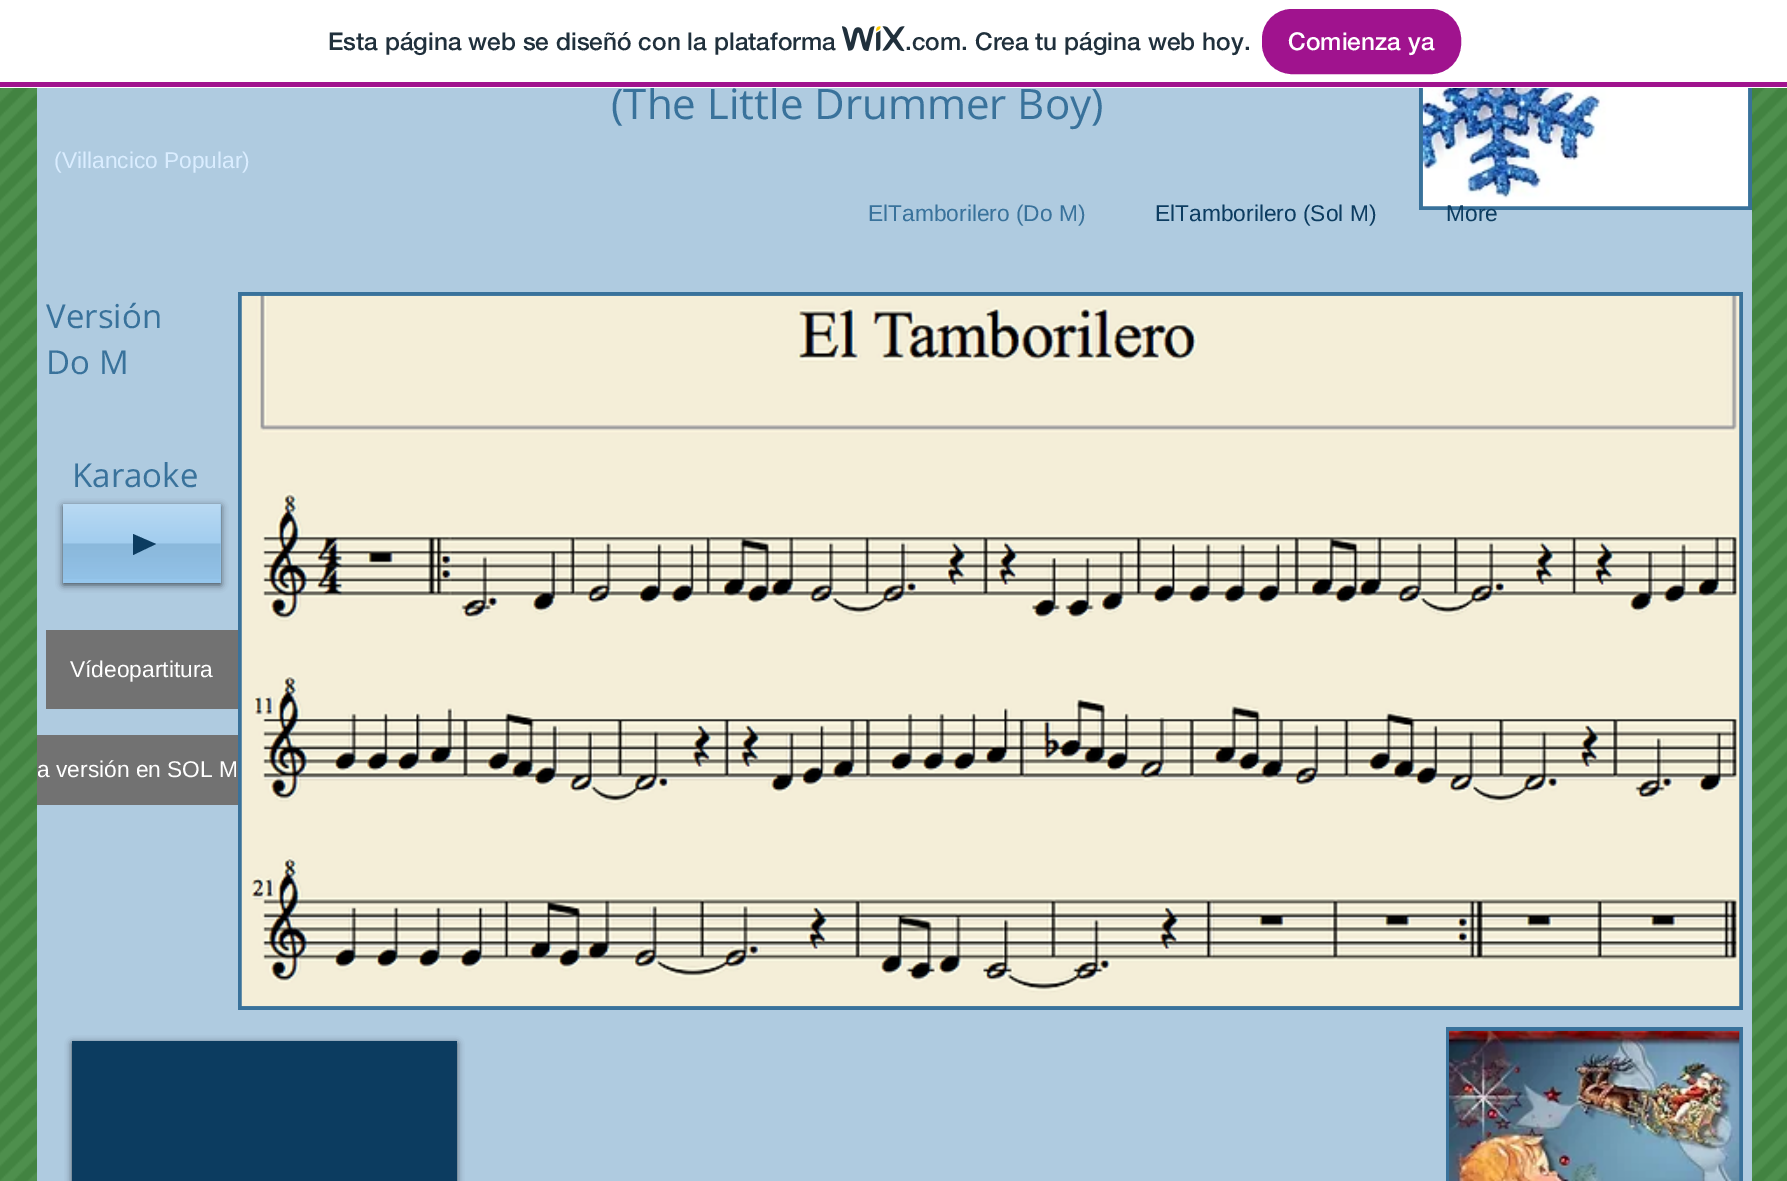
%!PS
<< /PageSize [1787 1181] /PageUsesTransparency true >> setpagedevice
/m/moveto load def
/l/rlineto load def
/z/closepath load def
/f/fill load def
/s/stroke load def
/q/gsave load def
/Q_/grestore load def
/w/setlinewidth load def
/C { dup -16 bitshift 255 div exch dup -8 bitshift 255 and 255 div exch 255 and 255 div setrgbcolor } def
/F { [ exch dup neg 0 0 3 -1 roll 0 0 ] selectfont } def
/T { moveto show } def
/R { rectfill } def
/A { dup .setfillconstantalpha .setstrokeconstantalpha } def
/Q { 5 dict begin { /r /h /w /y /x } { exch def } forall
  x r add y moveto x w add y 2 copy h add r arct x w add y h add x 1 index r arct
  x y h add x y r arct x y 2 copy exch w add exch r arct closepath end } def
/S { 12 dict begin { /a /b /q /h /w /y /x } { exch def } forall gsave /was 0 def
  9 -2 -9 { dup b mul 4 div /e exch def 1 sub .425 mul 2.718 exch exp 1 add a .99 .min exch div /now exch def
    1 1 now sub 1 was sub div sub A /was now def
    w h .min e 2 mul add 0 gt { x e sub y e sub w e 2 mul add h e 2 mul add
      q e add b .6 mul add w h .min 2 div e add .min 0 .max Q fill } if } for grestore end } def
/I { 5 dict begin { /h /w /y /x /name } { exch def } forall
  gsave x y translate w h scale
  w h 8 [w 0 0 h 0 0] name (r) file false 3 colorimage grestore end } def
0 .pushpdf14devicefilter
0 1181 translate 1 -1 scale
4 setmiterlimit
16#025E00 C
0 0 1787 1181 R
(6.rgb) 0 88 1787 1093 I
16#AFCBE0 C
37 88 1715 1093 R
/OpenSans-Regular 42 F
16#39729B C
(\(The Little Drummer Boy\)) 611 119 T
16#FFFFFF C
0 0 1787 88 R
16#A0138E C
0 82 1787 5 R
/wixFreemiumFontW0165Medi-Medium 24.5 F
16#20303C C
(Esta página web se diseñó con la plataforma) 328 50 T
(1.rgb) 842 26 63 26 I
(.com. Crea tu página web hoy.) 905 50 T
16#A0138E C
1263 10 197 63 29 Q q f Q_
2 w
s
16#FFFFFF C
(Comienza ya) 1288 50 T
/LiberationSans-Regular 22.75 F
16#DAEDFF C
(\(Villancico Popular\)) 54 168 T
16#39729B C
1419 88 333 122 R
(2.rgb) 1422 88 327 119 I
(ElTamborilero \(Do M\)) 868 221 T
16#0C3C60 C
(ElTamborilero \(Sol M\)) 1155 221 T
(More) 1446 221 T
/OpenSans-Regular 33 F
16#39729B C
(Versión) 46 328 T
(Do M) 46 374 T
238 292 1505 718 R
(3.rgb) 241 295 1499 712 I
(Karaoke) 72 487 T
16#000000 C
63 506 158 79 0 3.5 .6 S
16#95C6EC C
63 504 158 79 R
(4.rgb) 63 504 158 75 I
16#0C3C60 C
133 555 m 0 -21 l 23 10 l z f
16#727272 C
46 630 192 79 R
/LiberationSans-Regular 22.75 F
16#FFFFFF C
(Vídeopartitura) 70 677 T
16#727272 C
37 735 201 70 R
16#FFFFFF C
(a versión en SOL M) 37 777 T
16#39729B C
1446 1027 297 154 R
(5.rgb) 1449 1030 291 151 I
16#000000 C
72 1043 385 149 0 3.5 .6 S
16#0C3C60 C
72 1041 385 140 R
.poppdf14devicefilter showpage
